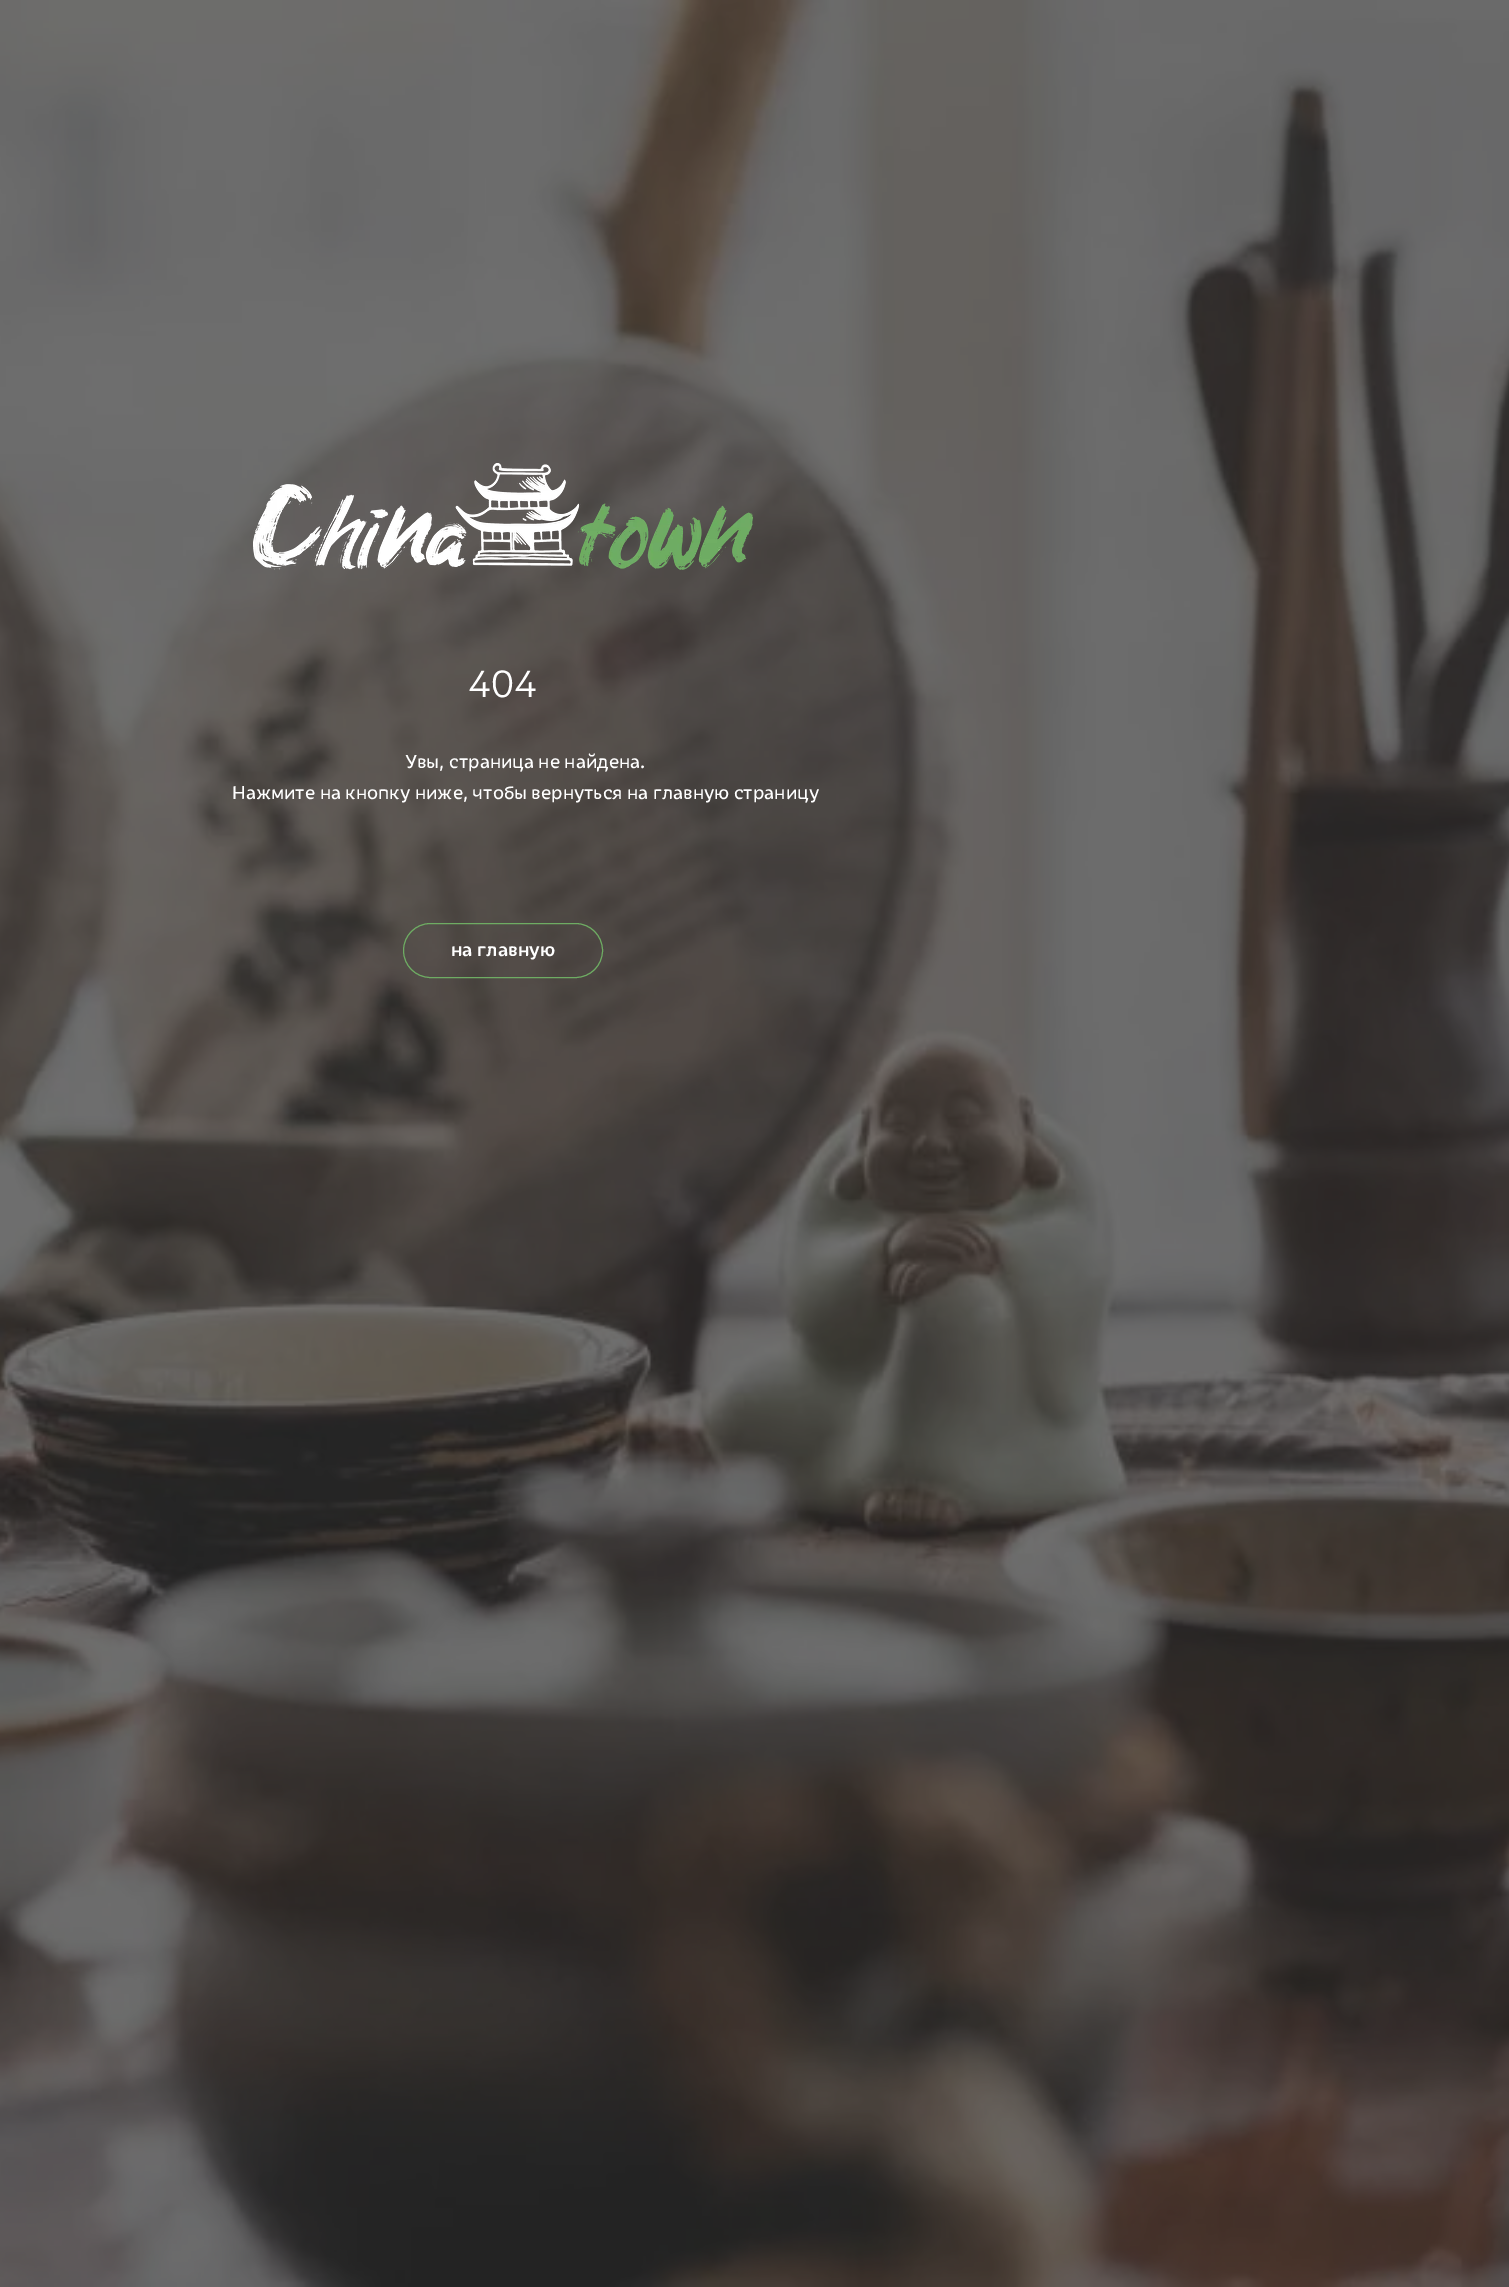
%!PS
<< /PageSize [1509 2287] >> setpagedevice
/s/stroke load def
/C { dup -16 bitshift 255 div exch dup -8 bitshift 255 and 255 div exch 255 and 255 div setrgbcolor } def
/F { [ exch dup neg 0 0 3 -1 roll 0 0 ] selectfont } def
/T { moveto show } def
/R { rectfill } def
/Q { 5 dict begin { /r /h /w /y /x } { exch def } forall
  x r add y moveto x w add y 2 copy h add r arct x w add y h add x 1 index r arct
  x y h add x y r arct x y 2 copy exch w add exch r arct closepath end } def
/I { 5 dict begin { /h /w /y /x /name } { exch def } forall
  gsave x y translate w h scale
  w h 8 [w 0 0 h 0 0] name (r) file false 3 colorimage grestore end } def
0 2287 translate 1 -1 scale
4 setmiterlimit
16#FFFFFF C
0 0 1509 2287 R
(1.rgb) 0 0 1509 2287 I
(2.rgb) 253 463 500 107 I
/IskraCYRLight-Light 46 F
(404) 468 697 T
/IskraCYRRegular-Regular 20 F
(Увы, страница не найдена.) 405 768 T
(Нажмите на кнопку ниже, чтобы вернуться на главную страницу) 232 799 T
16#6EAC63 C
403.5 923.5 199 54 27 Q s
/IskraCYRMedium-Medium 20 F
16#FFFFFF C
(на главную) 451 956 T
showpage
